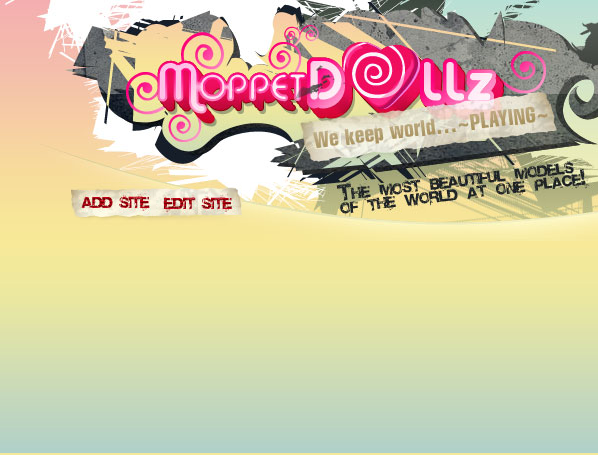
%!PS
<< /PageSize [598 455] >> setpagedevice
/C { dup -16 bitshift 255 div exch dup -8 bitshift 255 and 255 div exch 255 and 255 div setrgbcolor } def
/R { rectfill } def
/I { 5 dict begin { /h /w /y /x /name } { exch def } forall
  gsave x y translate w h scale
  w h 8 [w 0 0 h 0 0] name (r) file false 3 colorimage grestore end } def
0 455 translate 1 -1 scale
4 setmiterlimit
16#FFFFFF C
0 0 598 455 R
(1.rgb) 0 182 598 271 I
(2.rgb) 0 0 598 182 I
(3.rgb) 71 182 85 36 I
(4.rgb) 156 182 86 36 I
(5.rgb) 242 182 356 36 I
(6.rgb) 80 218 518 23 I
16#F4E99A C
0 453 598 2 R
showpage
